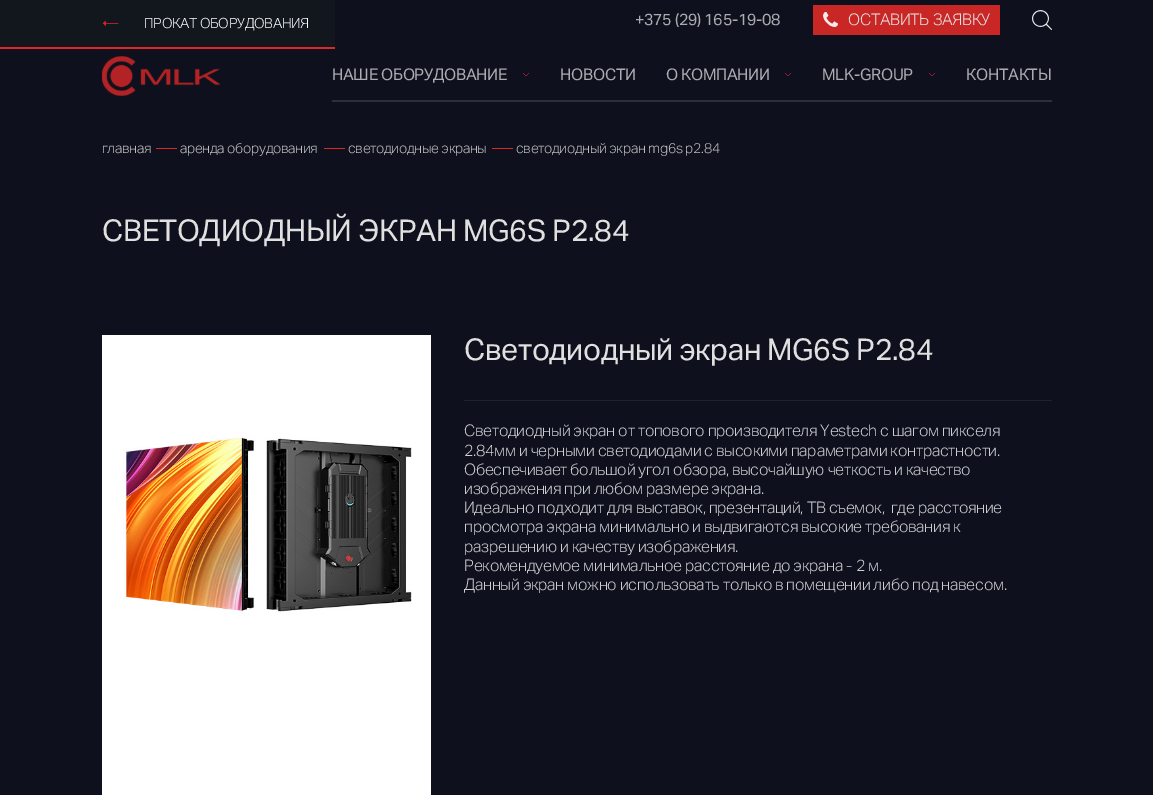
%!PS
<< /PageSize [1153 795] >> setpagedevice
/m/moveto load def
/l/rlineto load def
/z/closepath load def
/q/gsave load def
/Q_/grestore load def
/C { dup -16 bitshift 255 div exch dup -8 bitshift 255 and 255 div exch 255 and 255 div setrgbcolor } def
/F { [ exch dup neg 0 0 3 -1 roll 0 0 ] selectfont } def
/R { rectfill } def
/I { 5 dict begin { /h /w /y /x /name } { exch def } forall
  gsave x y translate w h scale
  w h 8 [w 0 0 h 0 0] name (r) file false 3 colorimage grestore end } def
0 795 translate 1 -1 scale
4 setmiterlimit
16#FFFFFF C
0 0 1153 795 R
q 0 0 m 1153 0 l 0 795 l -1153 0 l z clip newpath
<< /ShadingType 2 /ColorSpace /DeviceRGB /Coords [576 0 577 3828] /Extend [true true] /Function << /FunctionType 3 /Domain [0 1] /Functions [<< /FunctionType 2 /Domain [0 1] /C0 [.055 .067 .114] /C1 [.055 .067 .114] /N 1 >> << /FunctionType 2 /Domain [0 1] /C0 [.055 .067 .114] /C1 [.094 .067 .125] /N 1 >> << /FunctionType 2 /Domain [0 1] /C0 [.094 .067 .125] /C1 [.125 .067 .133] /N 1 >>] /Bounds [.6 .85] /Encode [0 1 0 1 0 1] >> >> shfill Q_
16#12161D C
0 0 335 47 R
16#DE2827 C
0 47 335 2 R
(1.rgb) 102 20 17 7 I
/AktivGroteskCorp-Light 14 F
16#FFFFFF C
144 28 m -.32 0 (ПРОКАТ ОБОРУДОВАНИЯ) ashow
/AktivGroteskCorp-Regular 16 F
16#ABACB0 C
635 25 m -.32 0 (+375 \(29\) 165-19-08) ashow
16#C92626 C
813 5 187 30 R
(2.rgb) 823 12 15 15 I
/AktivGroteskCorp-Light 16 F
16#E7E7E8 C
848 25 m -.32 0 (ОСТАВИТЬ ЗАЯВКУ) ashow
(3.rgb) 1032 10 20 20 I
(4.rgb) 102 56 118 40 I
16#2D303A C
332 100 720 2 R
/AktivGroteskCorp-Regular 16 F
16#ABACB0 C
332 80 m -.32 0 (НАШЕ ОБОРУДОВАНИЕ) ashow
(5.rgb) 523 73 6 3 I
560 80 m -.32 0 (НОВОСТИ) ashow
666 80 m -.32 0 (О КОМПАНИИ) ashow
(5.rgb) 785 73 6 3 I
822 80 m -.32 0 (MLK-GROUP) ashow
(5.rgb) 929 73 6 3 I
966 80 m -.32 0 (КОНТАКТЫ) ashow
/AktivGroteskCorp-Light 14 F
16#BDBDBD C
102 153 m -.32 0 (главная) ashow
16#DE2827 C
156 148 21 1 R
16#BDBDBD C
180 153 m -.32 0 (аренда оборудования) ashow
16#DE2827 C
324 148 21 1 R
16#BDBDBD C
348 153 m -.32 0 (светодиодные экраны) ashow
16#DE2827 C
492 148 21 1 R
16#BDBDBD C
516 153 m -.32 0 (светодиодный экран mg6s p2.84) ashow
/AktivGroteskCorp-Regular 30 F
16#E0E0E0 C
102 241 m -.32 0 (СВЕТОДИОДНЫЙ ЭКРАН MG6S P2.84) ashow
16#FFFFFF C
102 335 329 460 R
(6.rgb) 123 437 289 178 I
16#E0E0E0 C
464 360 m -.32 0 (Светодиодный экран MG6S P2.84) ashow
16#1D232C C
464 400 588 1 R
/AktivGroteskCorp-Light 16 F
16#CFCFD2 C
464 436 m -.32 0 (Светодиодный экран от топового производителя Yestech с шагом пикселя) ashow
464 456 m -.32 0 (2.84мм и черными светодиодами с высокими параметрами контрастности.) ashow
464 475 m -.32 0 (Обеспечивает большой угол обзора, высочайшую четкость и качество) ashow
464 494 m -.32 0 (изображения при любом размере экрана.) ashow
464 513 m -.32 0 (Идеально подходит для выставок, презентаций, ТВ съемок,  где расстояние) ashow
464 532 m -.32 0 (просмотра экрана минимально и выдвигаются высокие требования к) ashow
464 552 m -.32 0 (разрешению и качеству изображения.) ashow
464 571 m -.32 0 (Рекомендуемое минимальное расстояние до экрана - 2 м.) ashow
464 590 m -.32 0 (Данный экран можно использовать только в помещении либо под навесом.) ashow
showpage
